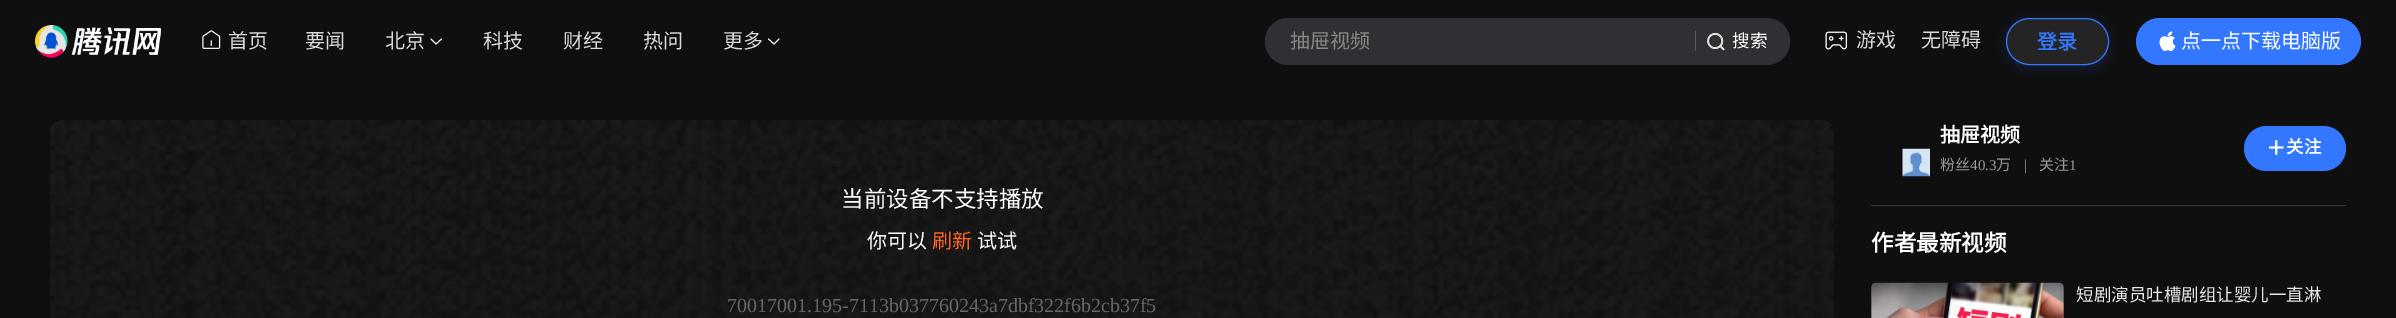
%!PS
<< /PageSize [2396 318] /PageUsesTransparency true >> setpagedevice
/m/moveto load def
/l/rlineto load def
/c/rcurveto load def
/z/closepath load def
/f/fill load def
/s/stroke load def
/q/gsave load def
/Q_/grestore load def
/w/setlinewidth load def
/C { dup -16 bitshift 255 div exch dup -8 bitshift 255 and 255 div exch 255 and 255 div setrgbcolor } def
/F { [ exch dup neg 0 0 3 -1 roll 0 0 ] selectfont } def
/T { moveto show } def
/R { rectfill } def
/A { dup .setfillconstantalpha .setstrokeconstantalpha } def
/Q { 5 dict begin { /r /h /w /y /x } { exch def } forall
  x r add y moveto x w add y 2 copy h add r arct x w add y h add x 1 index r arct
  x y h add x y r arct x y 2 copy exch w add exch r arct closepath end } def
/S { 12 dict begin { /a /b /q /h /w /y /x } { exch def } forall gsave /was 0 def
  9 -2 -9 { dup b mul 4 div /e exch def 1 sub .425 mul 2.718 exch exp 1 add a .99 .min exch div /now exch def
    1 1 now sub 1 was sub div sub A /was now def
    w h .min e 2 mul add 0 gt { x e sub y e sub w e 2 mul add h e 2 mul add
      q e add b .6 mul add w h .min 2 div e add .min 0 .max Q fill } if } for grestore end } def
/I { 5 dict begin { /h /w /y /x /name } { exch def } forall
  gsave x y translate w h scale
  w h 8 [w 0 0 h 0 0] name (r) file false 3 colorimage grestore end } def
0 .pushpdf14devicefilter
0 318 translate 1 -1 scale
4 setmiterlimit
16#0F0F0F C
0 0 2396 318 R
(1.rgb) 35 25 126 33 I
(2.rgb) 202 30 19 19 I
/NotoSansCJKSC-Regular 20 F
16#D9D9D9 C
(首页) 228 48 T
(要闻) 305 48 T
(北京) 385 48 T
16#FFFFFF C
.9 w
1 setlinecap
1 setlinejoin
441.5 39 m -5.5 5 l -5 -5 l s
16#D9D9D9 C
(科技) 483 48 T
(财经) 563 48 T
(热问) 643 48 T
(更多) 723 48 T
16#FFFFFF C
779 39 m -5 5 l -5.5 -5 l s
16#2F2F34 C
1265 18 525 47 23 Q f
16#888888 C
(抽屉视频) 1290 48 T
16#59595D C
1695 31 1 20 R
(3.rgb) 1707 32 18 19 I
/NotoSansCJKSC-Regular 17.5 F
16#FFFFFF C
(搜索) 1732 47 T
(4.rgb) 1825 31 23 19 I
/NotoSansCJKSC-Regular 20 F
16#D9D9D9 C
(游戏) 1856 47 T
(无障碍) 1921 47 T
q
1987 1 m 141 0 l 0 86 l -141 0 l z 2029.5 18 m 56 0 l 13 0 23.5 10.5 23.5 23.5 c 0 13 -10.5 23.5 -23.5 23.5 c -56 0 l -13 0 -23.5 -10.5 -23.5 -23.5 c 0 -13 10.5 -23.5 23.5 -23.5 c z eoclip newpath
16#3377FF C
2006 20 103 48 24 6 .16 S
Q_
0.1 A
2006.5 18.5 102 46 23 Q f
1 A
16#3377FF C
1 w
0 setlinecap
0 setlinejoin
2006.5 18.5 102 46 23 Q s
/NotoSansCJKSC-Bold 20 F
(登录) 2037 49 T
2136 18 225 47 23.5 Q f
(5.rgb) 2159 31 17 20 I
/NotoSansCJKSC-Regular 20 F
16#FFFFFF C
(点一点下载电脑版) 2181 48 T
(6.rgb) 50 120 1784 198 I
/NotoSansCJKSC-Regular 22.5 F
(当前设备不支持播放) 841 207 T
/NotoSansCJKSC-Regular 20 F
(你可以) 867 248 T
16#FC6526 C
(刷新) 932 248 T
16#FFFFFF C
(试试) 977 248 T
/LiberationSerif-Regular 20 F
16#666666 C
(70017001.195-7113b037760243a7dbf322f6b2cb37f5) 727 312 T
(7.rgb) 1902 148 28 29 I
/NotoSansCJKSC-Bold 20 F
16#FFFFFF C
(抽屉视频) 1940 142 T
/NotoSansCJKSC-Regular 15 F
16#999999 C
(粉丝) 1940 170 T
/LiberationSerif-Regular 15 F
(40.3) 1970 170 T
/NotoSansCJKSC-Regular 15 F
(万) 1996 170 T
/LiberationSerif-Regular 15 F
(|) 2024 170 T
/NotoSansCJKSC-Regular 15 F
(关注) 2039 170 T
/LiberationSerif-Regular 15 F
(1) 2069 170 T
16#3377FF C
2244 126 102 45 22.5 Q f
(8.rgb) 2269 140 15 15 I
/NotoSansCJKSC-Bold 17.5 F
16#FFFFFF C
(关注) 2286 153 T
16#383838 C
1871 205 475 1 R
/NotoSansCJKSC-Bold 22.5 F
16#FFFFFF C
(作者最新视频) 1871 251 T
16#333333 C
1871 283 193 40 5 Q f
(9.rgb) 1871 282 193 36 I
/NotoSansCJKSC-Regular 17.5 F
16#E6E6E6 C
(短剧演员吐槽剧组让婴儿一直淋) 2076 301 T
.poppdf14devicefilter showpage
